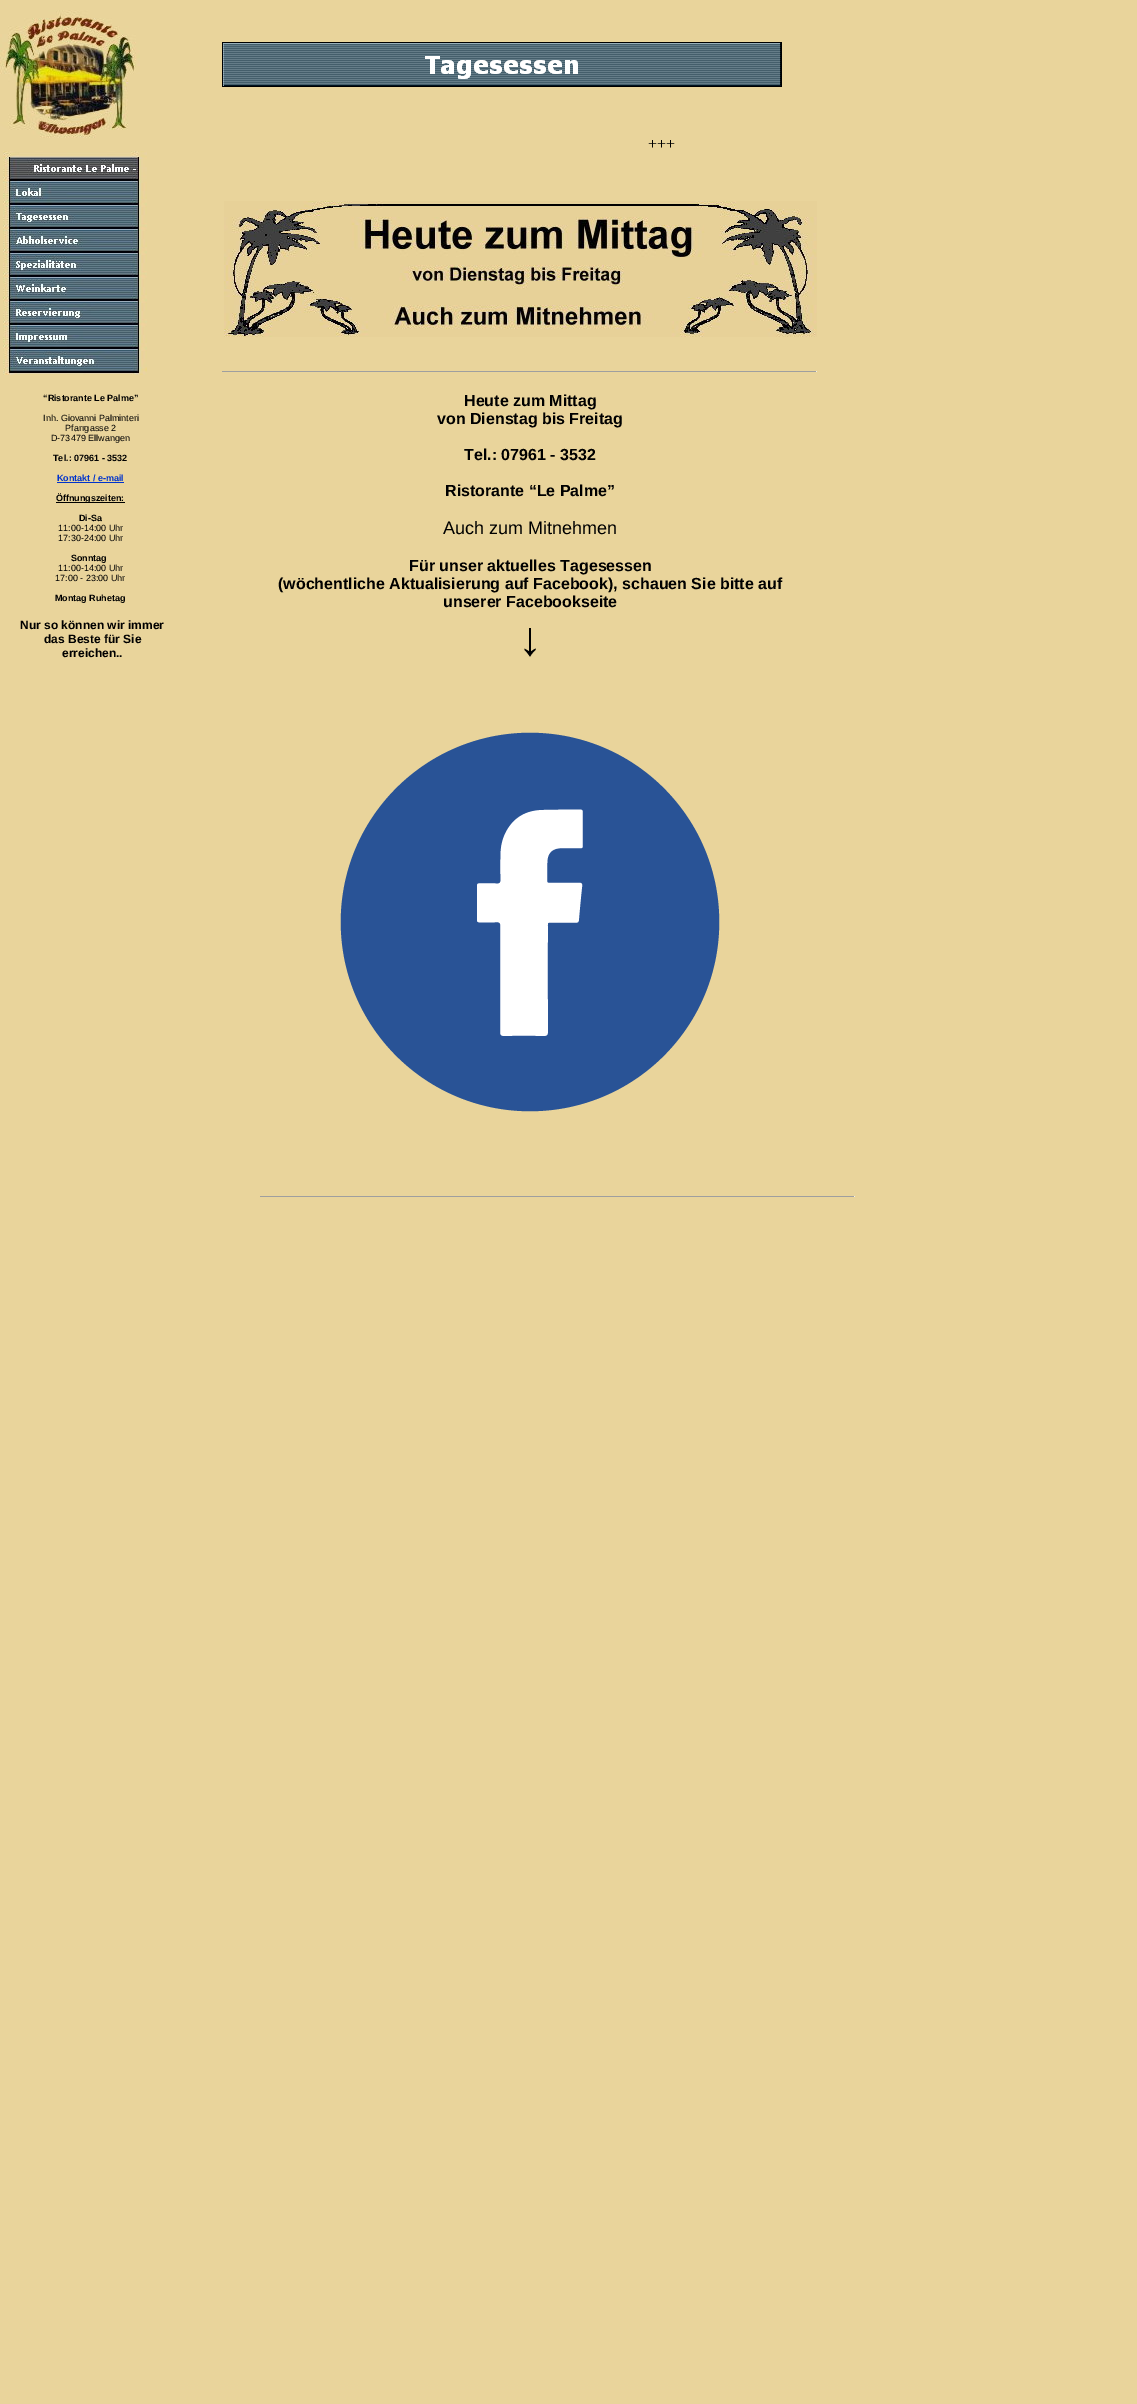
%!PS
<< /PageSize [1137 2404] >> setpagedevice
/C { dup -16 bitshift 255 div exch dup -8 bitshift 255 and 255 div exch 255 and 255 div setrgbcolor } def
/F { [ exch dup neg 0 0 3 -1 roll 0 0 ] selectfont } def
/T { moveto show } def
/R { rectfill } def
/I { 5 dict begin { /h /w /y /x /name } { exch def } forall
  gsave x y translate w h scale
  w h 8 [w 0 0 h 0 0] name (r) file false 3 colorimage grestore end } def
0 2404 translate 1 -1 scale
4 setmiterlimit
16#E9D49B C
0 0 1137 2404 R
(1.rgb) 0 10 140 128 I
(2.rgb) 3 151 144 224 I
/LiberationSans-Bold 9 F
16#000000 C
(“Ristorante Le Palme”) 43 401 T
/LiberationSans-Regular 9 F
(Inh. Giovanni Palminteri) 43 421 T
(Pfarrgasse 2) 65 431 T
(D-73479 Ellwangen) 51 441 T
/LiberationSans-Bold 9 F
(Tel.: 07961 - 3532) 53 461 T
16#0033CC C
(Kontakt / e-mail) 57 481 T
57 482 67 1 R
16#000000 C
56 502 69 1 R
(Öffnungszeiten:) 56 501 T
(Di-Sa) 79 521 T
/LiberationSans-Regular 9 F
(11:00-14:00 Uhr) 58 531 T
(17:30-24:00 Uhr) 58 541 T
/LiberationSans-Bold 9 F
(Sonntag) 71 561 T
/LiberationSans-Regular 9 F
(11:00-14:00 Uhr) 58 571 T
(17:00 - 23:00 Uhr) 55 581 T
/LiberationSans-Bold 9 F
(Montag Ruhetag) 55 601 T
/LiberationSans-Bold 12 F
(Nur so können wir immer) 20 629 T
(das Beste für Sie) 44 643 T
(erreichen..) 62 657 T
(3.rgb) 222 42 560 45 I
/LiberationSerif-Regular 16 F
(+++) 648 149 T
(4.rgb) 224 201 593 136 I
16#9F9F9F C
222 371 595 1 R
16#EEEEEE C
816 371 1 1 R
/LiberationSans-Bold 16 F
16#000000 C
(Heute zum Mittag) 464 406 T
(von Dienstag bis Freitag) 437 424 T
(Tel.: 07961 - 3532) 464 460 T
(Ristorante “Le Palme”) 445 496 T
/LiberationSans-Regular 18 F
(Auch zum Mitnehmen) 443 534 T
/LiberationSans-Bold 16 F
(Für unser aktuelles Tagesessen) 409 571 T
(\(wöchentliche Aktualisierung auf Facebook\), schauen Sie bitte auf) 278 589 T
(unserer Facebookseite) 443 607 T
/LiberationSans-Bold 48 F
(↓) 518 655 T
(5.rgb) 340 732 380 380 I
16#9F9F9F C
260 1196 595 1 R
16#EEEEEE C
854 1196 1 1 R
showpage
